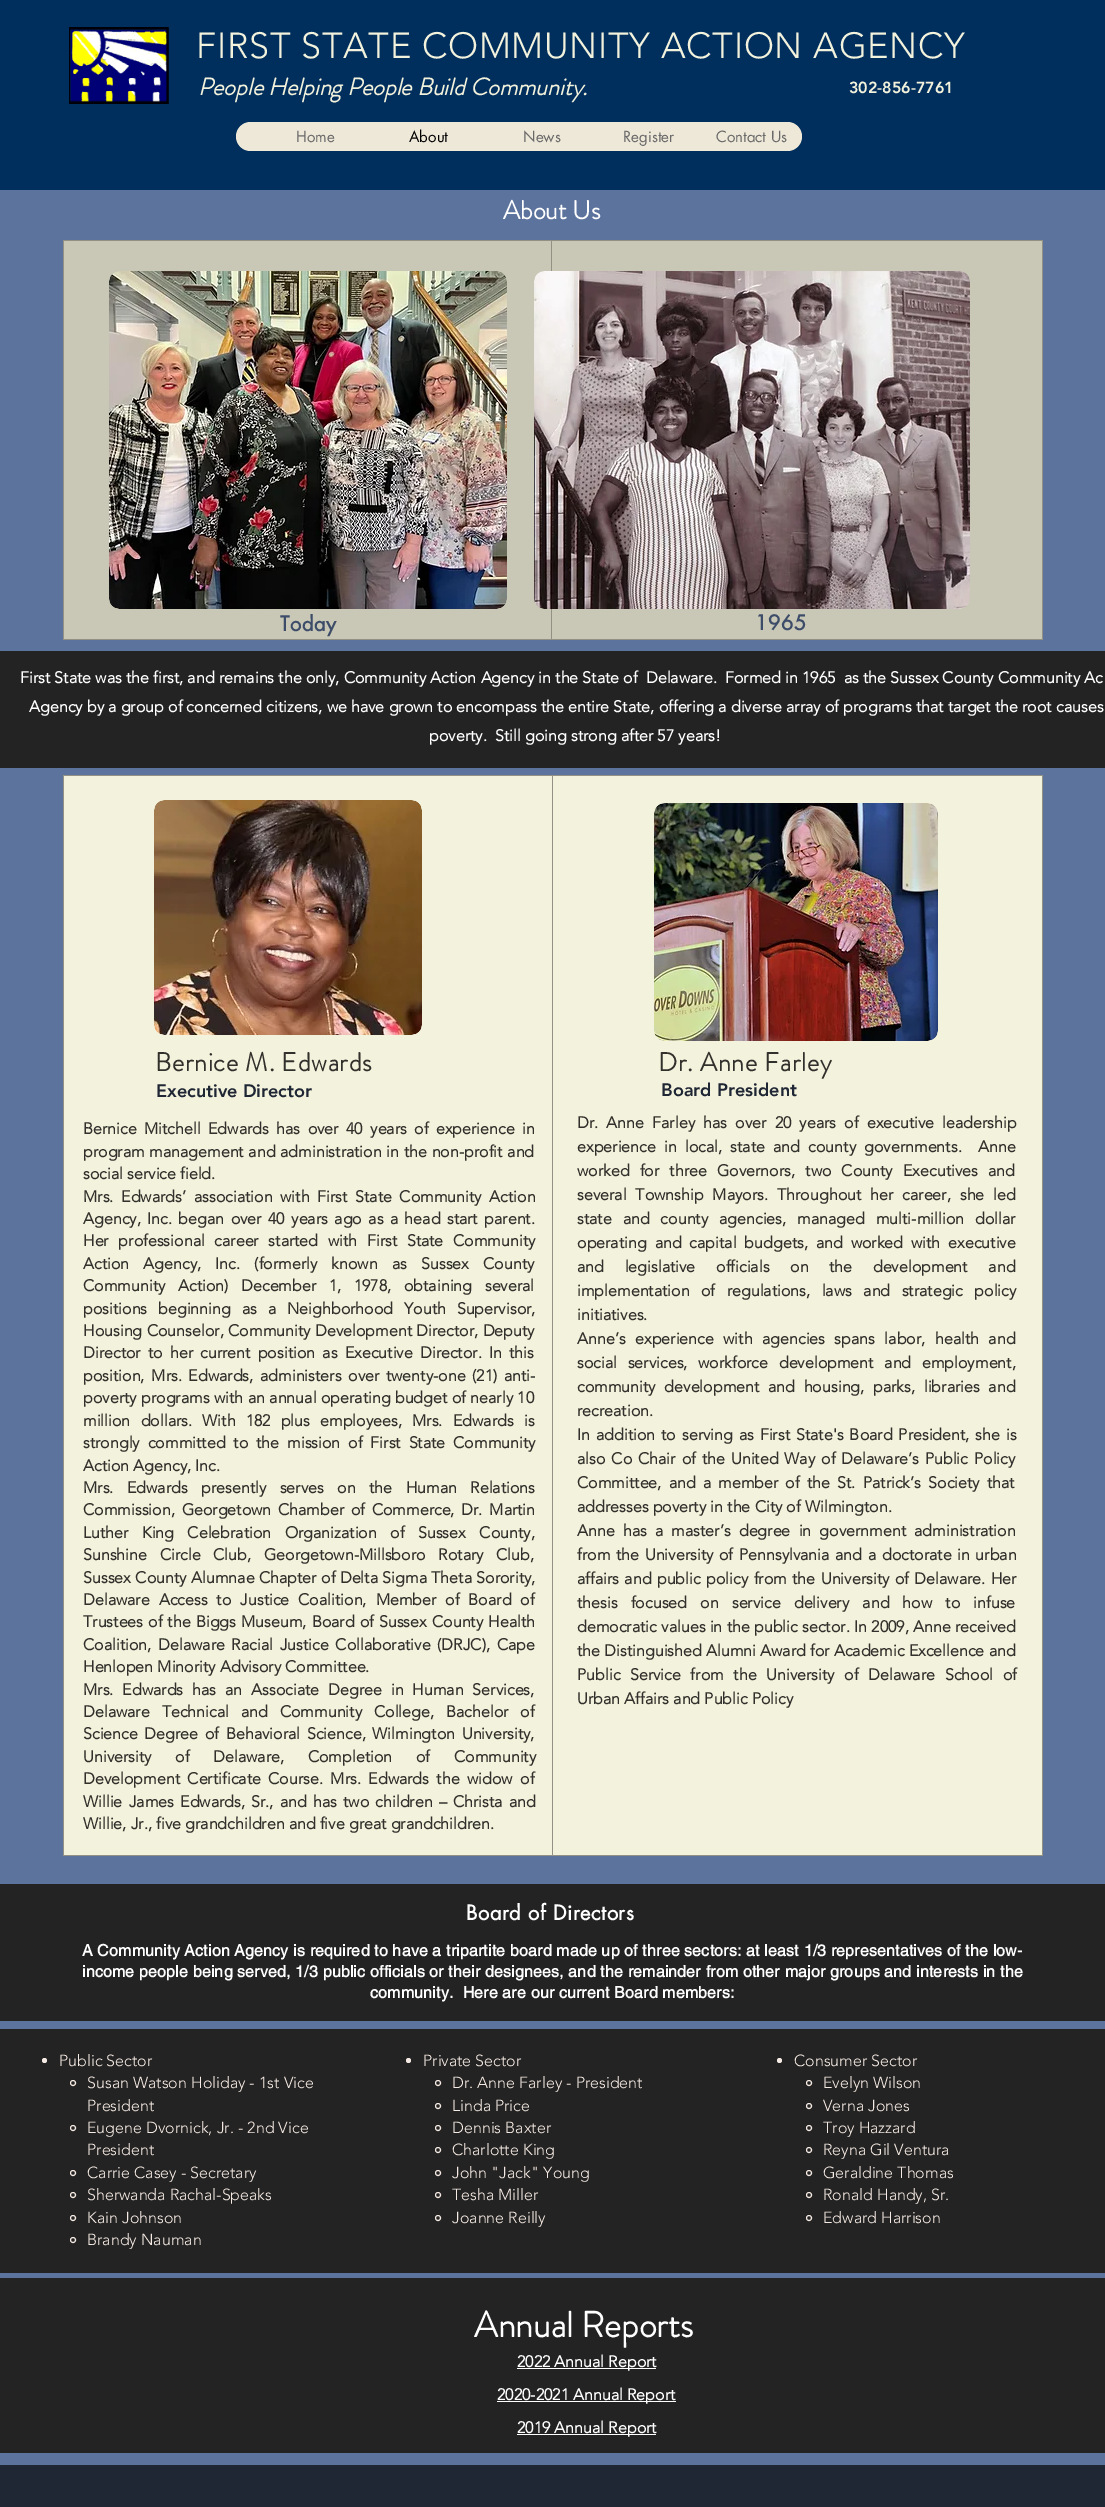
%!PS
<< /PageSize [1105 2507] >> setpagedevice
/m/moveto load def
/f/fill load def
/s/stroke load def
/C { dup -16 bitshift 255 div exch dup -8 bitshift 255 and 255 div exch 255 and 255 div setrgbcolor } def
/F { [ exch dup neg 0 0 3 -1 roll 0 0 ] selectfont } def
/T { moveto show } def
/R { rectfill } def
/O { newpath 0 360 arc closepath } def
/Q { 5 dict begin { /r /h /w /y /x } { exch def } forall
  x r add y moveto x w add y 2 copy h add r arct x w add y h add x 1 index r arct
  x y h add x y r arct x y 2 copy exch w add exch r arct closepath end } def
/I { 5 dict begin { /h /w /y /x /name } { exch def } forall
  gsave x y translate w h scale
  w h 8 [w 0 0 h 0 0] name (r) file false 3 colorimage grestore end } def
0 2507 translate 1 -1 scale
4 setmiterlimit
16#5C739D C
0 0 1105 2507 R
16#002E5D C
0 0 1105 190 R
(1.rgb) 69 27 100 77 I
/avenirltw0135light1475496-Light 36 F
16#F3F2DC C
196 58 m .7 0 (FIRST STATE COMMUNITY ACTION AGENCY) ashow
/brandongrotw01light-BoldItalic 24 F
(People Helping People Build Community.) 198 95 T
/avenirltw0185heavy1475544-Black 16 F
(302-856-7761) 849 93 T
16#EEE8D8 C
236 122 566 29 14.5 Q f
/futura-Regular 15 F
16#696969 C
(Home) 296 142 T
16#000000 C
(About) 409 142 T
16#696969 C
(News) 523 142 T
(Register) 623 142 T
(Contact Us) 716 142 T
/brandongrotw01light-Bold 26 F
16#FFFFFF C
(About Us) 503 219 T
16#929184 C
63 240 980 400 R
16#C9C8B6 C
64 241 487 398 R
(2.rgb) 109 271 398 338 I
/futura-Bold 20 F
16#3D4D69 C
280 631 m .6 0 (Today) ashow
16#C9C8B6 C
552 241 490 398 R
(3.rgb) 534 271 436 338 I
16#3D4D69 C
755 630 m .6 0 (1965) ashow
16#242323 C
0 651 1105 117 R
/avenirltw0135light1475496-Bold 16 F
16#FFFFFF C
(First State was the first, and remains the only, Community Action Agency in the State of  Delaware.  Formed in 1965  as the Sussex County Community Ac) 20 683 T
(Agency by a group of concerned citizens, we have grown to encompass the entire State, offering a diverse array of programs that target the root causes) 29 712 T
(poverty.  Still going strong after 57 years!) 429 741 T
16#929184 C
63 775 980 1081 R
16#F3F2DC C
64 776 488 1079 R
(4.rgb) 154 800 268 235 I
/brandongrotw01light-Bold 26 F
16#31302C C
155 1071 m .75 0 (Bernice M. Edwards) ashow
/avenirltw0185heavy1475544-Black 18 F
16#1F2634 C
(Executive Director) 156 1097 T
/avenirltw0135light1475496-Bold 16 F
16#31302C C
83 1134 m 3.25 0 32 (Bernice Mitchell Edwards has over 40 years of experience in) widthshow
83 1157 m .5 0 32 (program management and administration in the non-profit and) widthshow
(social service field.) 83 1179 T
83 1202 m 3.5 0 32 (Mrs. Edwards’ association with First State Community Action) widthshow
83 1224 m 2.25 0 32 (Agency, Inc. began over 40 years ago as a head start parent.) widthshow
83 1246 m 5.5 0 32 (Her professional career started with First State Community) widthshow
83 1269 m 10 0 32 (Action Agency, Inc. \(formerly known as Sussex County) widthshow
83 1291 m 8.5 0 32 (Community Action\) December 1, 1978, obtaining several) widthshow
83 1314 m 6.75 0 32 (positions beginning as a Neighborhood Youth Supervisor,) widthshow
83 1336 m .25 0 32 (Housing Counselor, Community Development Director, Deputy) widthshow
83 1358 m 3 0 32 (Director to her current position as Executive Director. In this) widthshow
83 1381 m 2.5 0 32 (position, Mrs. Edwards, administers over twenty-one \(21\) anti-) widthshow
83 1403 m .25 0 32 (poverty programs with an annual operating budget of nearly 10) widthshow
83 1426 m 6 0 32 (million dollars. With 182 plus employees, Mrs. Edwards is) widthshow
83 1448 m 3.75 0 32 (strongly committed to the mission of First State Community) widthshow
(Action Agency, Inc.) 83 1471 T
83 1493 m 9.25 0 32 (Mrs. Edwards presently serves on the Human Relations) widthshow
83 1515 m 2.5 0 32 (Commission, Georgetown Chamber of Commerce, Dr. Martin) widthshow
83 1538 m 9.25 0 32 (Luther King Celebration Organization of Sussex County,) widthshow
83 1560 m 8.5 0 32 (Sunshine Circle Club, Georgetown-Millsboro Rotary Club,) widthshow
83 1583 m .25 0 32 (Sussex County Alumnae Chapter of Delta Sigma Theta Sorority,) widthshow
83 1605 m 4.75 0 32 (Delaware Access to Justice Coalition, Member of Board of) widthshow
83 1627 m .9 0 32 (Trustees of the Biggs Museum, Board of Sussex County Health) widthshow
83 1650 m 2.5 0 32 (Coalition, Delaware Racial Justice Collaborative \(DRJC\), Cape) widthshow
(Henlopen Minority Advisory Committee.) 83 1672 T
83 1695 m 4.75 0 32 (Mrs. Edwards has an Associate Degree in Human Services,) widthshow
83 1717 m 7.75 0 32 (Delaware Technical and Community College, Bachelor of) widthshow
83 1739 m 2.5 0 32 (Science Degree of Behavioral Science, Wilmington University,) widthshow
83 1762 m 19.5 0 32 (University of Delaware, Completion of Community) widthshow
83 1784 m 3.25 0 32 (Development Certificate Course. Mrs. Edwards the widow of) widthshow
83 1807 m 2 0 32 (Willie James Edwards, Sr., and has two children – Christa and) widthshow
(Willie, Jr., five grandchildren and five great grandchildren.) 83 1829 T
16#F3F2DC C
553 776 489 1079 R
(5.rgb) 654 803 284 238 I
/brandongrotw01light-Bold 26 F
16#31302C C
658 1071 m .75 0 (Dr. Anne Farley) ashow
/avenirltw0185heavy1475544-Black 18 F
16#1F2634 C
(Board President) 661 1096 T
/avenirltw0135light1475496-Bold 16 F
16#31302C C
577 1128 m 4 0 32 (Dr. Anne Farley has over 20 years of executive leadership) widthshow
577 1152 m 4 0 32 (experience in local, state and county governments.  Anne) widthshow
577 1176 m 6 0 32 (worked for three Governors, two County Executives and) widthshow
577 1200 m 4.75 0 32 (several Township Mayors. Throughout her career, she led) widthshow
577 1224 m 6.75 0 32 (state and county agencies, managed multi-million dollar) widthshow
577 1248 m 3.75 0 32 (operating and capital budgets, and worked with executive) widthshow
577 1272 m 16.5 0 32 (and legislative officials on the development and) widthshow
577 1296 m 7.25 0 32 (implementation of regulations, laws and strategic policy) widthshow
(initiatives.) 577 1320 T
577 1344 m 5.25 0 32 (Anne’s experience with agencies spans labor, health and) widthshow
577 1368 m 6.5 0 32 (social services, workforce development and employment,) widthshow
577 1392 m 4.5 0 32 (community development and housing, parks, libraries and) widthshow
(recreation.) 577 1416 T
577 1440 m 1.75 0 32 (In addition to serving as First State's Board President, she is) widthshow
577 1464 m 1.75 0 32 (also Co Chair of the United Way of Delaware’s Public Policy) widthshow
577 1488 m 3 0 32 (Committee, and a member of the St. Patrick’s Society that) widthshow
(addresses poverty in the City of Wilmington.) 577 1512 T
577 1536 m 4 0 32 (Anne has a master’s degree in government administration) widthshow
577 1560 m 1.5 0 32 (from the University of Pennsylvania and a doctorate in urban) widthshow
577 1584 m 1.25 0 32 (affairs and public policy from the University of Delaware. Her) widthshow
577 1608 m 9 0 32 (thesis focused on service delivery and how to infuse) widthshow
577 1632 m .1 0 32 (democratic values in the public sector. In 2009, Anne received) widthshow
(the Distinguished Alumni Award for Academic Excellence and) 577 1656 T
577 1680 m 5.5 0 32 (Public Service from the University of Delaware School of) widthshow
(Urban Affairs and Public Policy) 577 1704 T
16#242323 C
0 1884 1105 137 R
/futura-Bold 20 F
16#FFFFFF C
466 1920 m .6 0 (Board of Directors) ashow
/helvetica-Bold 16 F
82 1956 m .16 0 (A Community Action Agency is required to have a tripartite board made up of three sectors: at least 1/3 representatives of the low-) ashow
82 1977 m .16 0 (income people being served, 1/3 public officials or their designees, and the remainder from other major groups and interests in the) ashow
370 1998 m .16 0 (community.  Here are our current Board members:) ashow
16#242323 C
0 2029 1105 244 R
16#F6EBE4 C
44.5 2060.5 2.5 O f
/avenirltw0135light1475496-Light 16 F
(Public Sector) 59 2066 T
73 2083 2.5 O s
(Susan Watson Holiday - 1st Vice) 87 2088 T
(President) 87 2111 T
73 2128 2.5 O s
(Eugene Dvornick, Jr. - 2nd Vice) 87 2133 T
(President) 87 2155 T
73 2173 2.5 O s
(Carrie Casey - Secretary) 87 2178 T
73 2195 2.5 O s
(Sherwanda Rachal-Speaks) 87 2200 T
73 2218 2.5 O s
(Kain Johnson) 87 2223 T
73 2240 2.5 O s
(Brandy Nauman) 87 2245 T
408.5 2060.5 2.5 O f
(Private Sector) 423 2066 T
438 2083 2.5 O s
(Dr. Anne Farley - President) 452 2088 T
438 2106 2.5 O s
(Linda Price) 452 2111 T
438 2128 2.5 O s
(Dennis Baxter) 452 2133 T
438 2150 2.5 O s
(Charlotte King) 452 2155 T
438 2173 2.5 O s
(John "Jack" Young) 452 2178 T
438 2195 2.5 O s
(Tesha Miller) 452 2200 T
438 2218 2.5 O s
(Joanne Reilly) 452 2223 T
779.5 2060.5 2.5 O f
(Consumer Sector) 794 2066 T
809 2083 2.5 O s
(Evelyn Wilson) 823 2088 T
809 2106 2.5 O s
(Verna Jones) 823 2111 T
809 2128 2.5 O s
(Troy Hazzard) 823 2133 T
809 2150 2.5 O s
(Reyna Gil Ventura) 823 2155 T
809 2173 2.5 O s
(Geraldine Thomas) 823 2178 T
809 2195 2.5 O s
(Ronald Handy, Sr.) 823 2200 T
809 2218 2.5 O s
(Edward Harrison) 823 2223 T
16#242323 C
0 2278 1105 175 R
/brandongrotw01light-Bold 36 F
16#FFFFFF C
(Annual Reports) 474 2337 T
517 2368 139 1 R
/avenirltw0135light1475496-Bold 16 F
(2022 Annual Report) 517 2367 T
497 2401 179 1 R
(2020-2021 Annual Report) 497 2400 T
517 2434 139 1 R
(2019 Annual Report) 517 2433 T
16#1F2634 C
0 2465 1105 42 R
showpage
